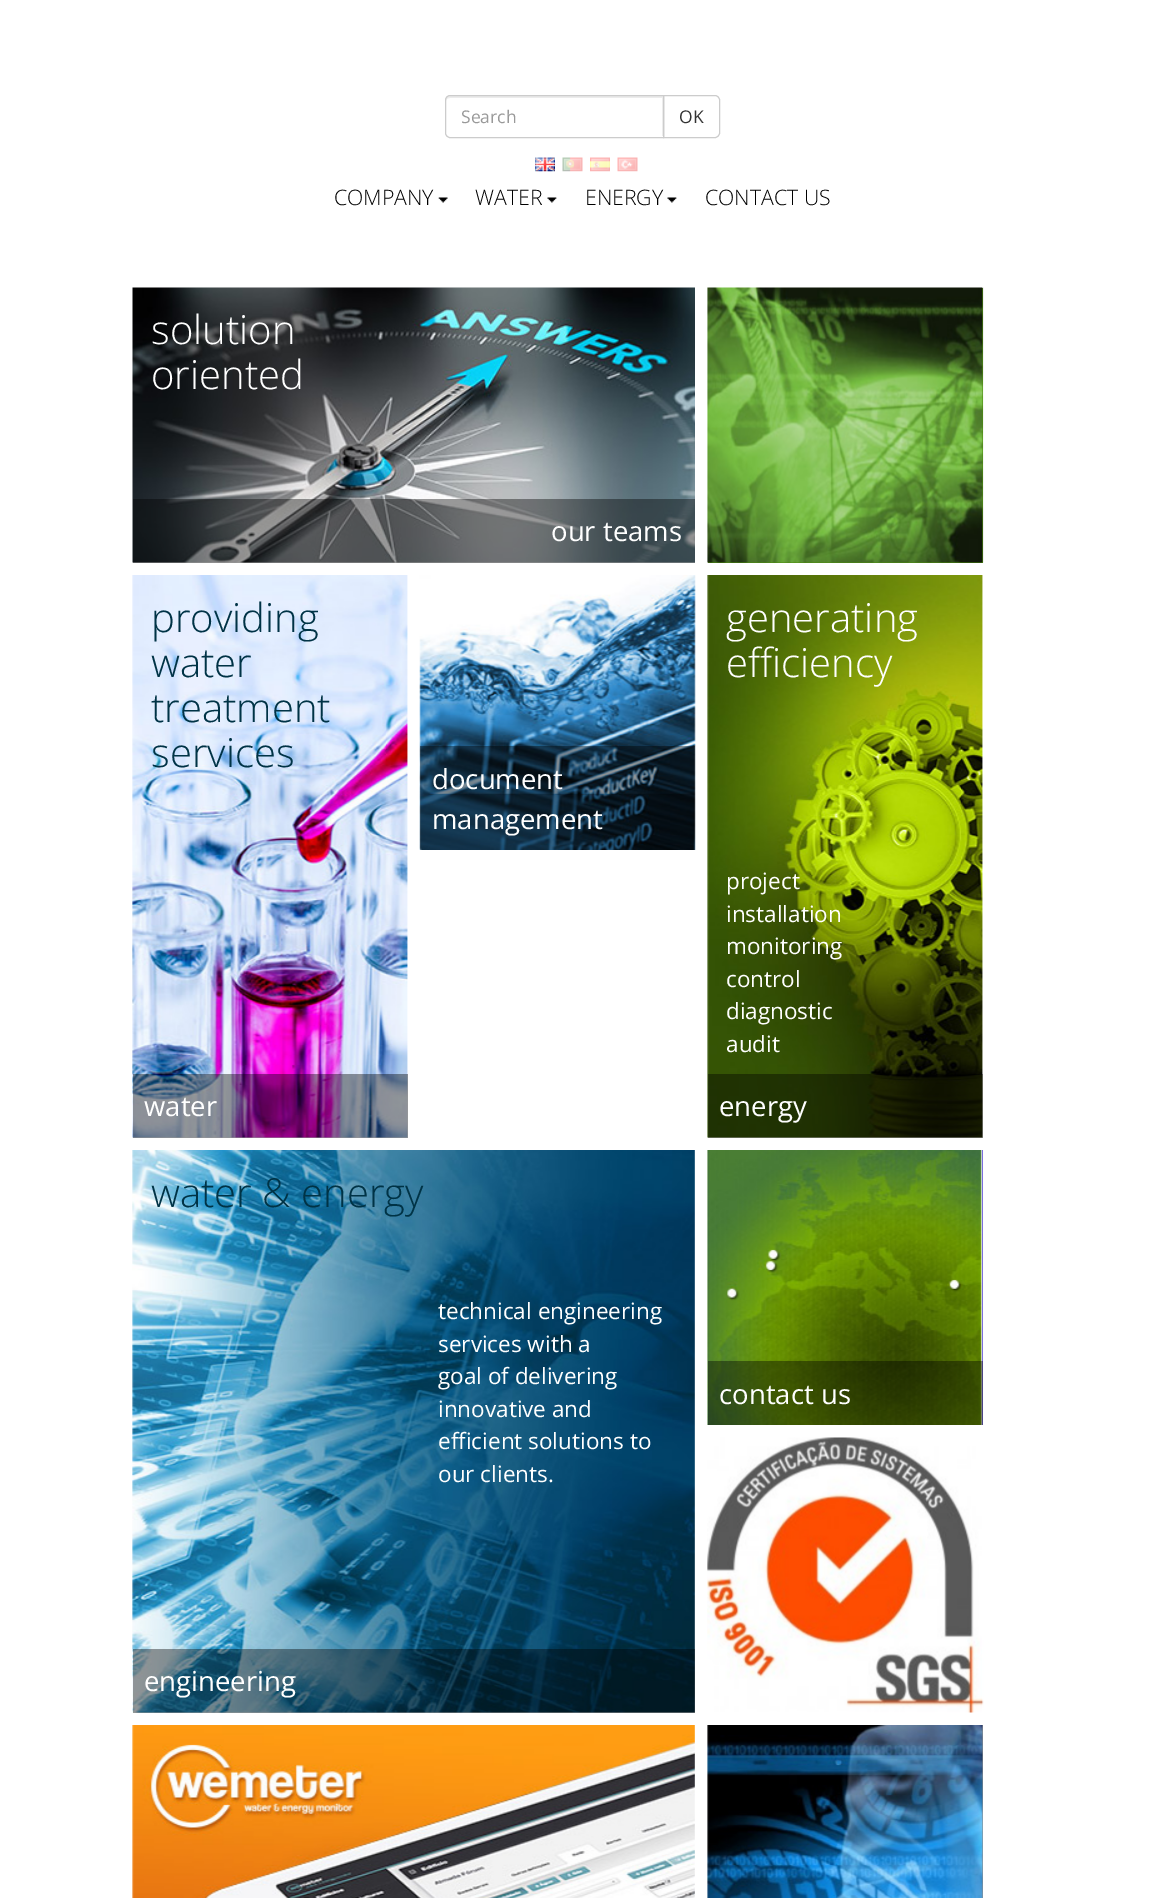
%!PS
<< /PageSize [1163 1898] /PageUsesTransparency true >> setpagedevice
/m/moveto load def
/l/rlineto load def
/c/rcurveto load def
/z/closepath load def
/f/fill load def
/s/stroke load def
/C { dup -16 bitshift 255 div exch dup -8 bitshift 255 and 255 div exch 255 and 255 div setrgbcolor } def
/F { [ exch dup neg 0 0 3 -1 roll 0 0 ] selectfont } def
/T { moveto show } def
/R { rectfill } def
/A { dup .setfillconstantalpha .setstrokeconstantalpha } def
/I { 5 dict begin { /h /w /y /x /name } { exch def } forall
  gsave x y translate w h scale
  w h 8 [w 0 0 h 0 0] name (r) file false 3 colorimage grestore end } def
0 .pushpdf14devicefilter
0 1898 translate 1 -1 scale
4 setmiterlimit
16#FFFFFF C
0 0 1163 1898 R
16#CCCCCC C
663.5 95.5 m 51.5 0 l 2.5 0 4.5 2 4.5 4.5 c 0 33 l 0 2.5 -2 4.5 -4.5 4.5 c -51.5 0 l z s
16#FFFFFF C
450 95 m 214 0 l 0 43 l -214 0 l -3 0 -5 -2 -5 -5 c 0 -33 l 0 -3 2 -5 5 -5 c z f
16#ECECEC C
450 98 m 212 0 l 0 38 l 1 0 l 0 -40 l -215 0 l -2 1 -2 3 -2 5 c 0 -2 2 -3 4 -3 c z f
16#CCCCCC C
450 95.5 m 213.5 0 l 0 42 l -213.5 0 l -2.5 0 -4.5 -2 -4.5 -4.5 c 0 -33 l 0 -2.5 2 -4.5 4.5 -4.5 c z s
/OpenSans-Regular 17.5 F
16#999999 C
(Search) 461 123 T
16#333333 C
(OK) 679 123 T
(1.rgb) 535 157 20 15 I
(2.rgb) 562 157 21 15 I
(3.rgb) 590 157 20 15 I
(4.rgb) 617 157 21 15 I
/OpenSans-Light 21.25 F
16#000000 C
(COMPANY) 334 205 T
(5.rgb) 438 197 10 6 I
(WATER) 475 205 T
(6.rgb) 547 197 10 6 I
(ENERGY) 585 205 T
(6.rgb) 667 197 10 6 I
(CONTACT US) 705 205 T
(7.rgb) 132 287 563 276 I
/OpenSans-Light 40 F
16#FFFFFF C
(solution) 151 344 T
(oriented) 151 389 T
0.4 A
16#000000 C
133 499 562 64 R
/OpenSans-Regular 27.5 F
1 A
16#FFFFFF C
(our teams) 551 541 T
16#4C8B0E C
708 288 275 275 R
(8.rgb) 707 287 277 276 I
(9.rgb) 132 575 276 563 I
/OpenSans-Light 40 F
16#003346 C
(providing) 151 632 T
(water) 151 677 T
(treatment) 151 722 T
(services) 151 767 T
0.4 A
16#000000 C
133 1074 275 64 R
/OpenSans-Regular 27.5 F
1 A
16#FFFFFF C
(water) 144 1116 T
(10.rgb) 419 575 277 275 I
0.4 A
16#000000 C
420 746 275 104 R
1 A
16#FFFFFF C
(document) 432 789 T
(management) 432 829 T
(11.rgb) 707 575 276 563 I
/OpenSans-Light 40 F
(generating) 726 632 T
(efficiency) 726 677 T
/OpenSans-Regular 22.5 F
(project) 726 889 T
(installation) 726 922 T
(monitoring) 726 954 T
(control) 726 987 T
(diagnostic) 726 1019 T
(audit) 726 1052 T
0.4 A
16#000000 C
708 1074 275 64 R
/OpenSans-Regular 27.5 F
1 A
16#FFFFFF C
(energy) 719 1116 T
(12.rgb) 132 1150 563 563 I
/OpenSans-Light 40 F
16#003346 C
(water & energy) 151 1207 T
/OpenSans-Regular 22.5 F
16#FFFFFF C
(technical engineering) 438 1319 T
(services with a) 438 1352 T
(goal of delivering) 438 1384 T
(innovative and) 438 1417 T
(efficient solutions to) 438 1449 T
(our clients.) 438 1482 T
0.4 A
16#000000 C
133 1649 562 64 R
/OpenSans-Regular 27.5 F
1 A
16#FFFFFF C
(engineering) 144 1691 T
16#1E05D0 C
708 1150 275 275 R
(13.rgb) 707 1150 276 275 I
0.4 A
16#000000 C
708 1361 275 64 R
1 A
16#FFFFFF C
(contact us) 719 1404 T
(14.rgb) 707 1437 277 276 I
(15.rgb) 132 1725 563 173 I
16#8A8A8A C
708 1725 275 173 R
(16.rgb) 707 1725 276 173 I
.poppdf14devicefilter showpage
